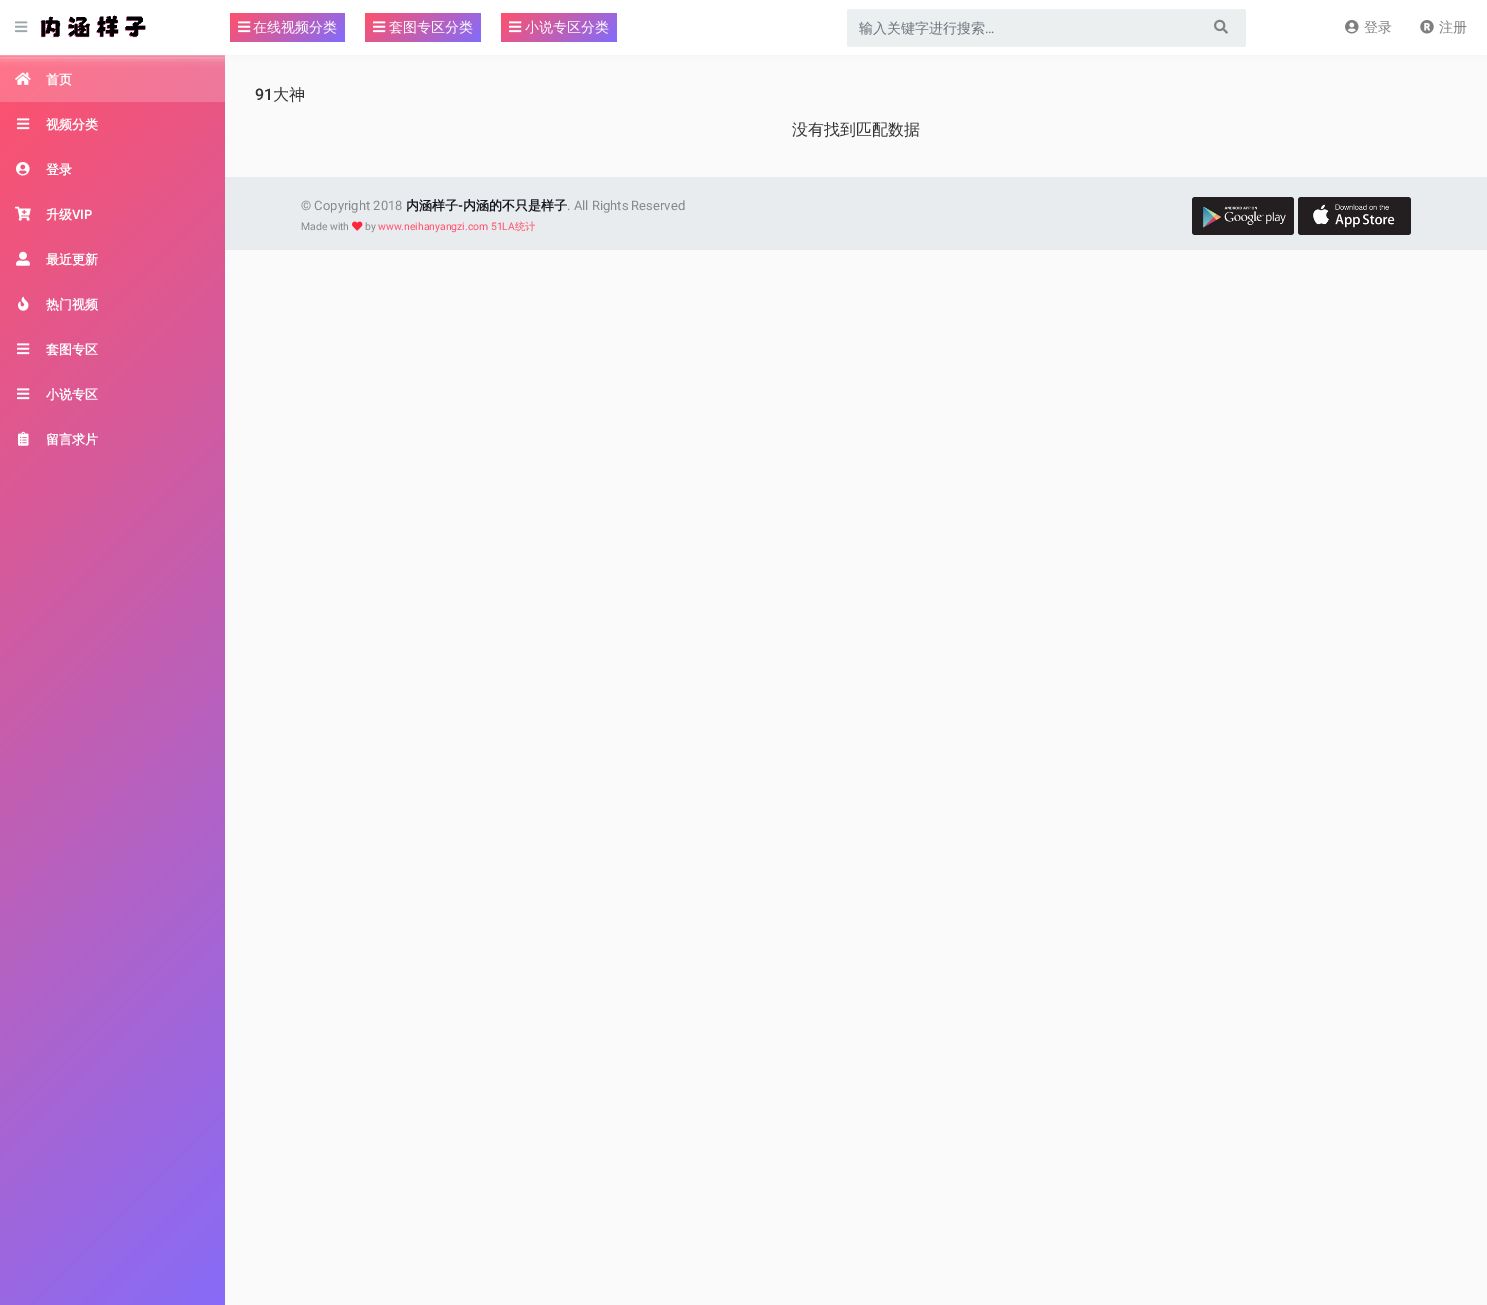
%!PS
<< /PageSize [1487 1305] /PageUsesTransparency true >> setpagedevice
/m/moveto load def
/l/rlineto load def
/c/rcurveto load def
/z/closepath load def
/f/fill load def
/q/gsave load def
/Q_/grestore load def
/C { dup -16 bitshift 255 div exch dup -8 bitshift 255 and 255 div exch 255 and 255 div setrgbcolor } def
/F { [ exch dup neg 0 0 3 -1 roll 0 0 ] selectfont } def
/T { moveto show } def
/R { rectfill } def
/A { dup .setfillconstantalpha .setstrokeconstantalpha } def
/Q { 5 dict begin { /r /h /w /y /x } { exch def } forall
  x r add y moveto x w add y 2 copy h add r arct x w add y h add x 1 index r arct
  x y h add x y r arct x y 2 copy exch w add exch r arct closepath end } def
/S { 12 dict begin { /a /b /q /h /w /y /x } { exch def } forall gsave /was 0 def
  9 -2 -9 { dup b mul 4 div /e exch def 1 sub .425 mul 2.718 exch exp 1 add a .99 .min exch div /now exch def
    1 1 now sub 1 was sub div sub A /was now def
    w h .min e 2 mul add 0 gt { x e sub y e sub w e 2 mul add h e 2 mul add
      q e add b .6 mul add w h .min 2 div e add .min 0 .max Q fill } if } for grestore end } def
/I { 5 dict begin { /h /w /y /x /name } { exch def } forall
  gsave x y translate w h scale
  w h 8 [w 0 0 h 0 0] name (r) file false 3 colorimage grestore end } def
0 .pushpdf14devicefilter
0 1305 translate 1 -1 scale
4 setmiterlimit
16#FAFAFA C
0 0 1487 1305 R
q 0 55 m 225 0 l 0 1250 l -225 0 l z clip newpath
<< /ShadingType 2 /ColorSpace /DeviceRGB /Coords [-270 325 495 1090] /Extend [true true] /Function << /FunctionType 2 /Domain [0 1] /C0 [1 .318 .42] /C1 [.51 .424 .992] /N 1 >> >> shfill Q_
q 0 57 m 225 0 l 0 45 l -225 0 l z clip newpath
<< /ShadingType 2 /ColorSpace /DeviceRGB /Coords [-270 325 495 1090] /Extend [true true] /Function << /FunctionType 2 /Domain [0 1] /C0 [1 .455 .537] /C1 [.608 .537 .992] /N 1 >> >> shfill Q_
16#F2F2F2 C
0 0 1487 55 0 5 1 S
16#FFFFFF C
0 0 1487 55 R
(1.rgb) 15 21 13 12 I
(2.rgb) 40 15 106 23 I
q 230 13 115 29 2 Q clip newpath
<< /ShadingType 2 /ColorSpace /DeviceRGB /Coords [252 -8 324 63] /Extend [true true] /Function << /FunctionType 2 /Domain [0 1] /C0 [1 .318 .42] /C1 [.51 .424 .992] /N 1 >> >> shfill Q_
(3.rgb) 238 21 13 12 I
/WenQuanYiZenHei-Medium 14 F
(在线视频分类) 253 32 T
q 365 13 116 29 2 Q clip newpath
<< /ShadingType 2 /ColorSpace /DeviceRGB /Coords [387 -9 459 64] /Extend [true true] /Function << /FunctionType 2 /Domain [0 1] /C0 [1 .318 .42] /C1 [.51 .424 .992] /N 1 >> >> shfill Q_
(4.rgb) 373 21 13 12 I
(套图专区分类) 389 32 T
q 501 13 116 29 2 Q clip newpath
<< /ShadingType 2 /ColorSpace /DeviceRGB /Coords [523 -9 595 64] /Extend [true true] /Function << /FunctionType 2 /Domain [0 1] /C0 [1 .318 .42] /C1 [.51 .424 .992] /N 1 >> >> shfill Q_
(4.rgb) 509 21 13 12 I
(小说专区分类) 525 32 T
16#ECEFF0 C
849 9 m 348 0 l 0 38 l -348 0 l -1 0 -2 -1 -2 -2 c 0 -34 l 0 -1 1 -2 2 -2 c z f
16#6C757D C
(输入关键字进行搜索) 859 33 T
/Roboto-Regular 14 F
(…) 985 33 T
16#ECEFF0 C
1196 9 m 48 0 l 1 0 2 1 2 2 c 0 34 l 0 1 -1 2 -2 2 c -48 0 l z f
(5.rgb) 1214 19 14 15 I
(6.rgb) 1345 20 14 14 I
/WenQuanYiZenHei-Medium 14 F
16#808080 C
(登录) 1364 32 T
(7.rgb) 1420 20 14 14 I
(注册) 1439 32 T
(8.rgb) 15 72 16 13 I
/WenQuanYiZenHei-Bold 13 F
16#FFFFFF C
(首页) 46 84 T
(9.rgb) 17 118 13 12 I
(视频分类) 46 129 T
(10.rgb) 16 162 14 14 I
(登录) 46 174 T
(11.rgb) 15 206 16 15 I
(升级) 46 219 T
/Roboto-SemiBold 13 F
(VIP) 72 219 T
(12.rgb) 16 251 14 15 I
/WenQuanYiZenHei-Bold 13 F
(最近更新) 46 264 T
(13.rgb) 18 296 11 15 I
(热门视频) 46 309 T
(14.rgb) 17 343 13 12 I
(套图专区) 46 354 T
(15.rgb) 17 388 13 12 I
(小说专区) 46 399 T
(16.rgb) 18 431 11 15 I
(留言求片) 46 444 T
/Roboto-Medium 16 F
16#333333 C
(91) 255 100 T
/WenQuanYiZenHei-Medium 16 F
(大神) 273 100 T
(没有找到匹配数据) 792 135 T
16#E9ECEF C
225 177 1262 73 R
/Roboto-Regular 13 F
16#888888 C
(© Copyright 2018) 301 210 T
/WenQuanYiZenHei-Bold 13 F
16#171B20 C
(内涵样子) 406 210 T
/Roboto-Bold 13 F
(-) 458 210 T
/WenQuanYiZenHei-Bold 13 F
(内涵的不只是样子) 463 210 T
/Roboto-Regular 13 F
16#888888 C
(. All Rights Reserved) 567 210 T
/Roboto-Regular 10.4 F
(Made with) 301 230 T
(17.rgb) 352 221 11 10 I
(by) 365 230 T
16#FF516B C
(www.neihanyangzi.com 51LA) 378 230 T
/WenQuanYiZenHei-Medium 10.4 F
(统计) 515 230 T
16#231F20 C
1192 197 102 38 3 Q f
1298 197 113 38 3 Q f
(18.rgb) 1203 206 83 22 I
(19.rgb) 1312 204 83 24 I
.poppdf14devicefilter showpage
